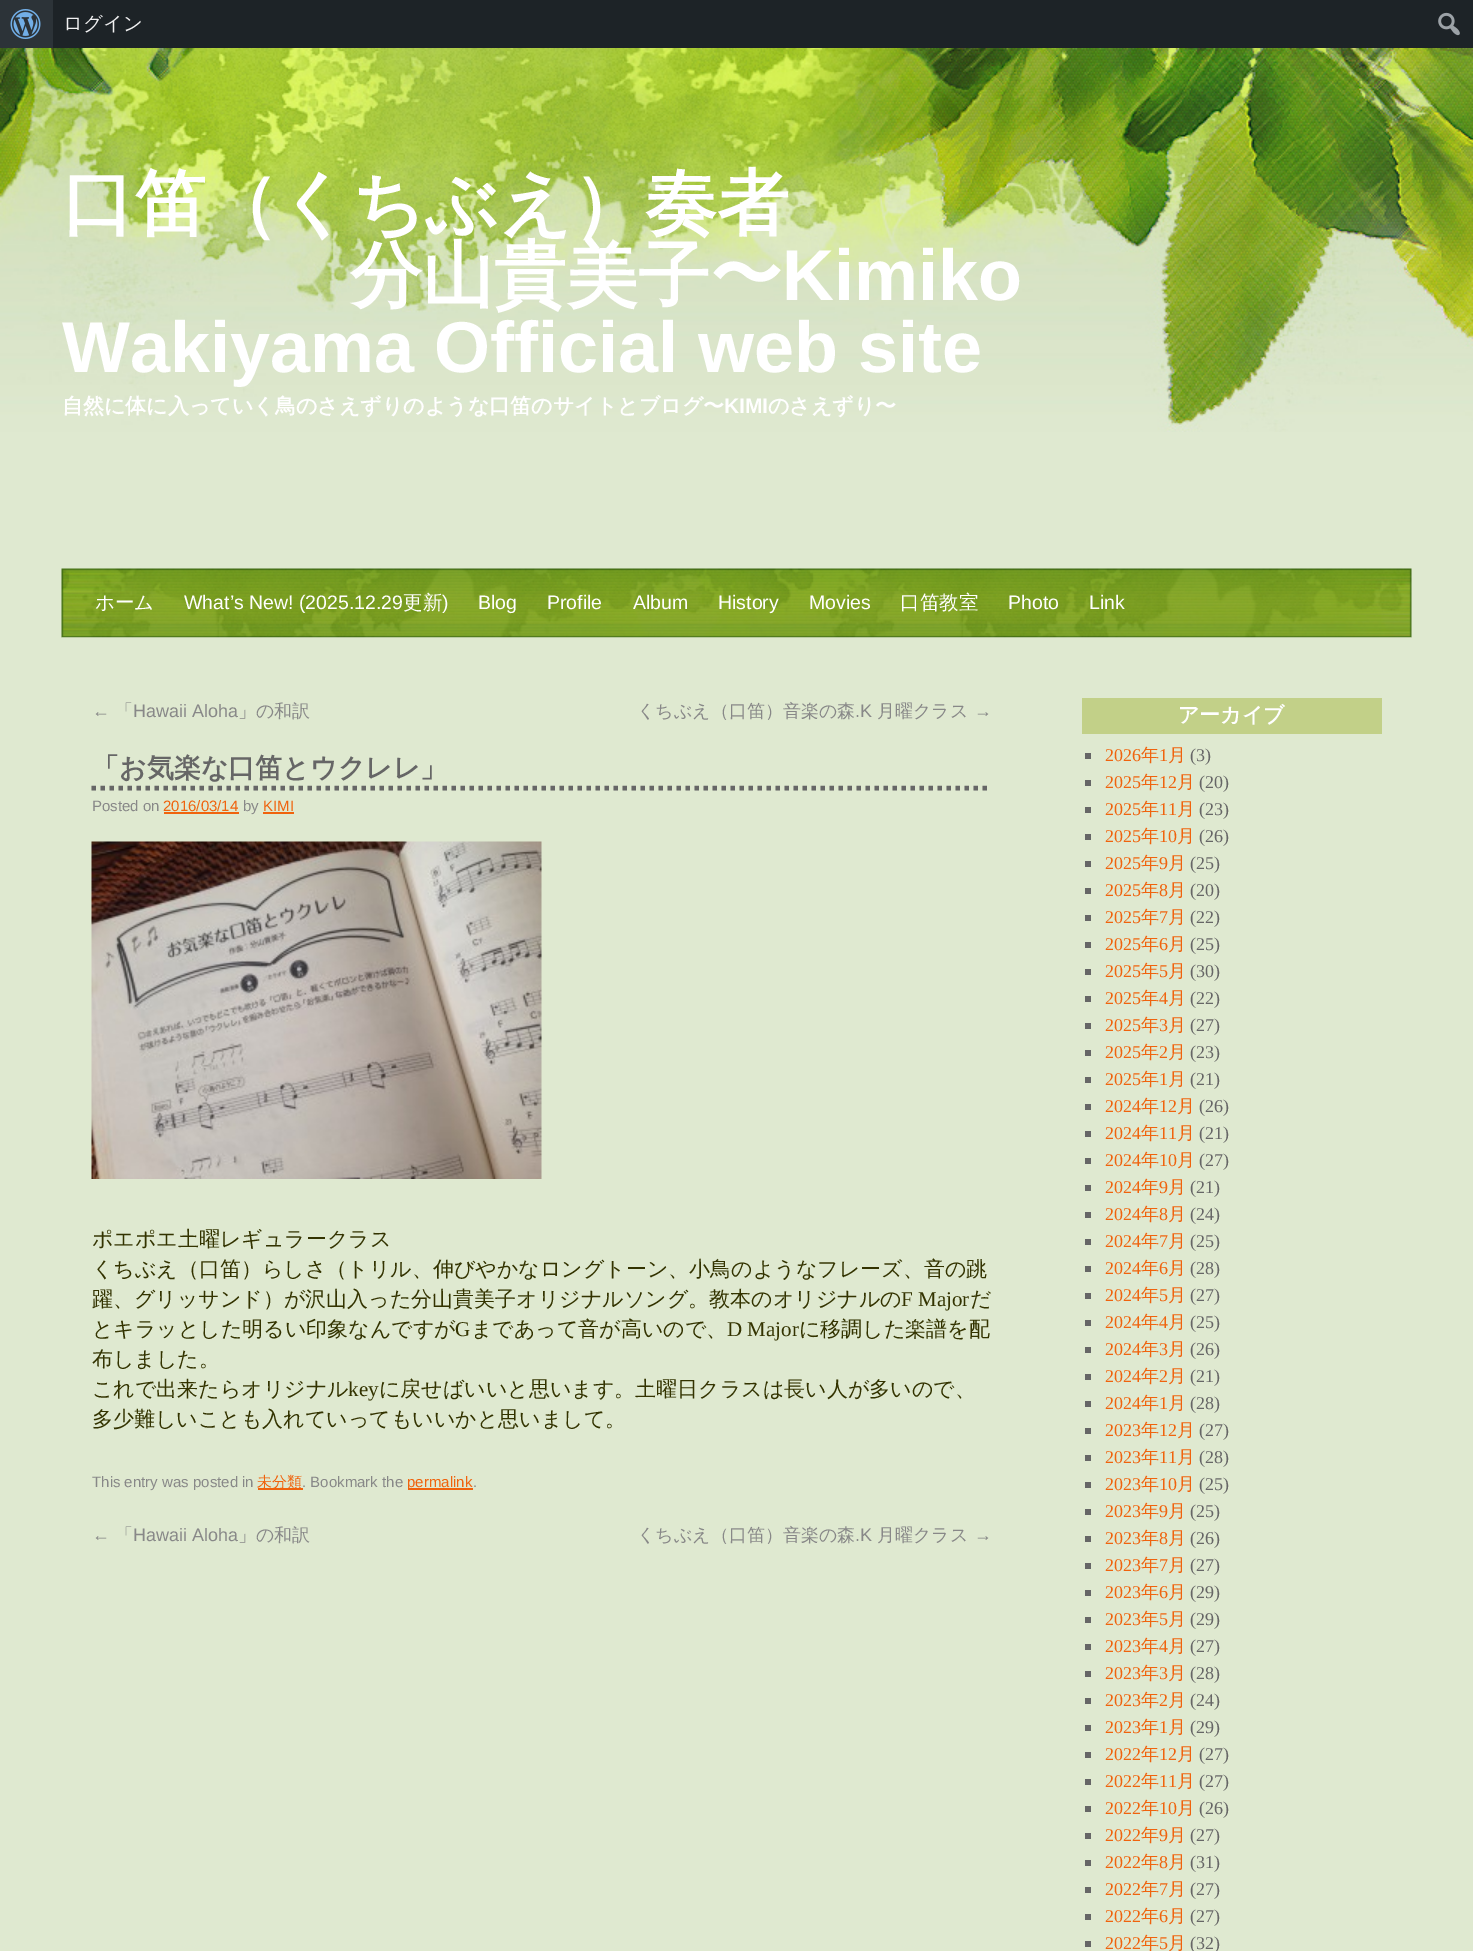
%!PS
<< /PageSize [1473 1951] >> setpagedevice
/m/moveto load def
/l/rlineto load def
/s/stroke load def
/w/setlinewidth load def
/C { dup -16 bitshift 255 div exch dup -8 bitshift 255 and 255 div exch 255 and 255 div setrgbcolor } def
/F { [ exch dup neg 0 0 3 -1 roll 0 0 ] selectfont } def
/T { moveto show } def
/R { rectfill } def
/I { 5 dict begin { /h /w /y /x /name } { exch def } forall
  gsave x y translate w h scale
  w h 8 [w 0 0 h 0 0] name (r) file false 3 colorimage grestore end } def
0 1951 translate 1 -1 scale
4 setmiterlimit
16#DFE9D0 C
0 0 1473 1951 R
(1.rgb) 0 48 1473 384 I
16#1D2327 C
53 0 1420 48 R
16#2C3338 C
0 0 53 48 R
(2.rgb) 10 9 31 30 I
/WenQuanYiZenHei-Medium 19.5 F
16#F0F0F1 C
(ログイン) 63 30 T
(3.rgb) 1438 12 22 24 I
/WenQuanYiZenHei-Bold 72 F
16#FFFFFF C
(口笛（くちぶえ）奏者) 62 228 T
(分山貴美子〜) 350 300 T
/LiberationSans-Bold 72 F
(Kimiko) 782 300 T
(Wakiyama Official web site) 62 372 T
/WenQuanYiZenHei-Bold 21 F
(自然に体に入っていく鳥のさえずりのような口笛のサイトとブログ〜) 62 413 T
/LiberationSans-Bold 21 F
(KIMI) 724 413 T
/WenQuanYiZenHei-Bold 21 F
(のさえずり〜) 768 413 T
(4.rgb) 61 568 1351 70 I
/WenQuanYiZenHei-Medium 19.5 F
(ホーム) 95 609 T
/LiberationSans-Regular 19.5 F
(What’s New! \(2025.12.29) 184 609 T
/WenQuanYiZenHei-Medium 19.5 F
(更新) 403 609 T
/LiberationSans-Regular 19.5 F
(\)) 442 609 T
(Blog) 478 609 T
(Profile) 547 609 T
(Album) 633 609 T
(History) 718 609 T
(Movies) 809 609 T
/WenQuanYiZenHei-Medium 19.5 F
(口笛教室) 900 609 T
/LiberationSans-Regular 19.5 F
(Photo) 1008 609 T
(Link) 1089 609 T
(5.rgb) 61 637 1351 1 I
/LiberationSans-Regular 18 F
16#888888 C
(←) 92 717 T
/WenQuanYiZenHei-Medium 18 F
(「) 115 717 T
/LiberationSans-Regular 18 F
(Hawaii Aloha) 133 717 T
/WenQuanYiZenHei-Medium 18 F
(」の和訳) 238 717 T
(くちぶえ（口笛）音楽の森) 637 717 T
/LiberationSans-Regular 18 F
(.K) 855 717 T
/WenQuanYiZenHei-Medium 18 F
(月曜クラス) 877 717 T
/LiberationSans-Regular 18 F
(→) 974 717 T
16#666666 C
4.5 w
[4.5 4.5] 0 setdash
91.5 788 m 900 0 l s
/WenQuanYiZenHei-Bold 27 F
(「お気楽な口笛とウクレレ」) 92 777 T
/LiberationSans-Regular 15 F
16#888888 C
(Posted on) 92 811 T
16#F0630D C
(2016/03/14) 163 811 T
164 812 75 2 R
16#888888 C
(by) 243 811 T
16#F0630D C
(KIMI) 263 811 T
263 812 31 2 R
(6.rgb) 91 841 451 338 I
/WenQuanYiZenHei-Medium 21 F
16#333300 C
(ポエポエ土曜レギュラークラス) 92 1246 T
(くちぶえ（口笛）らしさ（トリル、伸びやかなロングトーン、小鳥のようなフレーズ、音の跳) 92 1276 T
(躍、グリッサンド）が沢山入った分山貴美子オリジナルソング。教本のオリジナルの) 92 1306 T
/LiberationSerif-Regular 21 F
(F Major) 901 1306 T
/WenQuanYiZenHei-Medium 21 F
(だ) 970 1306 T
(とキラッとした明るい印象なんですが) 92 1336 T
/LiberationSerif-Regular 21 F
(G) 455 1336 T
/WenQuanYiZenHei-Medium 21 F
(まであって音が高いので、) 471 1336 T
/LiberationSerif-Regular 21 F
(D Major) 727 1336 T
/WenQuanYiZenHei-Medium 21 F
(に移調した楽譜を配) 799 1336 T
(布しました。) 92 1366 T
(これで出来たらオリジナル) 92 1396 T
/LiberationSerif-Regular 21 F
(key) 348 1396 T
/WenQuanYiZenHei-Medium 21 F
(に戻せばいいと思います。土曜日クラスは長い人が多いので、) 379 1396 T
(多少難しいことも入れていってもいいかと思いまして。) 92 1426 T
/LiberationSans-Regular 15 F
16#888888 C
(This entry was posted in) 92 1487 T
16#F0630D C
258 1488 45 2 R
/WenQuanYiZenHei-Medium 15 F
(未分類) 257 1487 T
/LiberationSans-Regular 15 F
16#888888 C
(. Bookmark the) 302 1487 T
16#F0630D C
408 1488 65 2 R
(permalink) 407 1487 T
16#888888 C
(.) 473 1487 T
/LiberationSans-Regular 18 F
(←) 92 1541 T
/WenQuanYiZenHei-Medium 18 F
(「) 115 1541 T
/LiberationSans-Regular 18 F
(Hawaii Aloha) 133 1541 T
/WenQuanYiZenHei-Medium 18 F
(」の和訳) 238 1541 T
(くちぶえ（口笛）音楽の森) 637 1541 T
/LiberationSans-Regular 18 F
(.K) 855 1541 T
/WenQuanYiZenHei-Medium 18 F
(月曜クラス) 877 1541 T
/LiberationSans-Regular 18 F
(→) 974 1541 T
16#C2D088 C
1082 698 300 36 R
/WenQuanYiZenHei-Bold 21 F
16#FFFFFF C
(アーカイブ) 1178 722 T
16#666666 C
1085 753 6 6 R
/LiberationSerif-Regular 18 F
16#F0630D C
(2026) 1105 761 T
/WenQuanYiZenHei-Medium 18 F
(年) 1141 761 T
/LiberationSerif-Regular 18 F
(1) 1159 761 T
/WenQuanYiZenHei-Medium 18 F
(月) 1168 761 T
/LiberationSerif-Regular 18 F
16#666666 C
(\(3\)) 1190 761 T
1085 780 6 6 R
16#F0630D C
(2025) 1105 788 T
/WenQuanYiZenHei-Medium 18 F
(年) 1141 788 T
/LiberationSerif-Regular 18 F
(12) 1159 788 T
/WenQuanYiZenHei-Medium 18 F
(月) 1177 788 T
/LiberationSerif-Regular 18 F
16#666666 C
(\(20\)) 1199 788 T
1085 807 6 6 R
16#F0630D C
(2025) 1105 815 T
/WenQuanYiZenHei-Medium 18 F
(年) 1141 815 T
/LiberationSerif-Regular 18 F
(11) 1159 815 T
/WenQuanYiZenHei-Medium 18 F
(月) 1177 815 T
/LiberationSerif-Regular 18 F
16#666666 C
(\(23\)) 1199 815 T
1085 834 6 6 R
16#F0630D C
(2025) 1105 842 T
/WenQuanYiZenHei-Medium 18 F
(年) 1141 842 T
/LiberationSerif-Regular 18 F
(10) 1159 842 T
/WenQuanYiZenHei-Medium 18 F
(月) 1177 842 T
/LiberationSerif-Regular 18 F
16#666666 C
(\(26\)) 1199 842 T
1085 861 6 6 R
16#F0630D C
(2025) 1105 869 T
/WenQuanYiZenHei-Medium 18 F
(年) 1141 869 T
/LiberationSerif-Regular 18 F
(9) 1159 869 T
/WenQuanYiZenHei-Medium 18 F
(月) 1168 869 T
/LiberationSerif-Regular 18 F
16#666666 C
(\(25\)) 1190 869 T
1085 888 6 6 R
16#F0630D C
(2025) 1105 896 T
/WenQuanYiZenHei-Medium 18 F
(年) 1141 896 T
/LiberationSerif-Regular 18 F
(8) 1159 896 T
/WenQuanYiZenHei-Medium 18 F
(月) 1168 896 T
/LiberationSerif-Regular 18 F
16#666666 C
(\(20\)) 1190 896 T
1085 915 6 6 R
16#F0630D C
(2025) 1105 923 T
/WenQuanYiZenHei-Medium 18 F
(年) 1141 923 T
/LiberationSerif-Regular 18 F
(7) 1159 923 T
/WenQuanYiZenHei-Medium 18 F
(月) 1168 923 T
/LiberationSerif-Regular 18 F
16#666666 C
(\(22\)) 1190 923 T
1085 942 6 6 R
16#F0630D C
(2025) 1105 950 T
/WenQuanYiZenHei-Medium 18 F
(年) 1141 950 T
/LiberationSerif-Regular 18 F
(6) 1159 950 T
/WenQuanYiZenHei-Medium 18 F
(月) 1168 950 T
/LiberationSerif-Regular 18 F
16#666666 C
(\(25\)) 1190 950 T
1085 969 6 6 R
16#F0630D C
(2025) 1105 977 T
/WenQuanYiZenHei-Medium 18 F
(年) 1141 977 T
/LiberationSerif-Regular 18 F
(5) 1159 977 T
/WenQuanYiZenHei-Medium 18 F
(月) 1168 977 T
/LiberationSerif-Regular 18 F
16#666666 C
(\(30\)) 1190 977 T
1085 996 6 6 R
16#F0630D C
(2025) 1105 1004 T
/WenQuanYiZenHei-Medium 18 F
(年) 1141 1004 T
/LiberationSerif-Regular 18 F
(4) 1159 1004 T
/WenQuanYiZenHei-Medium 18 F
(月) 1168 1004 T
/LiberationSerif-Regular 18 F
16#666666 C
(\(22\)) 1190 1004 T
1085 1023 6 6 R
16#F0630D C
(2025) 1105 1031 T
/WenQuanYiZenHei-Medium 18 F
(年) 1141 1031 T
/LiberationSerif-Regular 18 F
(3) 1159 1031 T
/WenQuanYiZenHei-Medium 18 F
(月) 1168 1031 T
/LiberationSerif-Regular 18 F
16#666666 C
(\(27\)) 1190 1031 T
1085 1050 6 6 R
16#F0630D C
(2025) 1105 1058 T
/WenQuanYiZenHei-Medium 18 F
(年) 1141 1058 T
/LiberationSerif-Regular 18 F
(2) 1159 1058 T
/WenQuanYiZenHei-Medium 18 F
(月) 1168 1058 T
/LiberationSerif-Regular 18 F
16#666666 C
(\(23\)) 1190 1058 T
1085 1077 6 6 R
16#F0630D C
(2025) 1105 1085 T
/WenQuanYiZenHei-Medium 18 F
(年) 1141 1085 T
/LiberationSerif-Regular 18 F
(1) 1159 1085 T
/WenQuanYiZenHei-Medium 18 F
(月) 1168 1085 T
/LiberationSerif-Regular 18 F
16#666666 C
(\(21\)) 1190 1085 T
1085 1104 6 6 R
16#F0630D C
(2024) 1105 1112 T
/WenQuanYiZenHei-Medium 18 F
(年) 1141 1112 T
/LiberationSerif-Regular 18 F
(12) 1159 1112 T
/WenQuanYiZenHei-Medium 18 F
(月) 1177 1112 T
/LiberationSerif-Regular 18 F
16#666666 C
(\(26\)) 1199 1112 T
1085 1131 6 6 R
16#F0630D C
(2024) 1105 1139 T
/WenQuanYiZenHei-Medium 18 F
(年) 1141 1139 T
/LiberationSerif-Regular 18 F
(11) 1159 1139 T
/WenQuanYiZenHei-Medium 18 F
(月) 1177 1139 T
/LiberationSerif-Regular 18 F
16#666666 C
(\(21\)) 1199 1139 T
1085 1158 6 6 R
16#F0630D C
(2024) 1105 1166 T
/WenQuanYiZenHei-Medium 18 F
(年) 1141 1166 T
/LiberationSerif-Regular 18 F
(10) 1159 1166 T
/WenQuanYiZenHei-Medium 18 F
(月) 1177 1166 T
/LiberationSerif-Regular 18 F
16#666666 C
(\(27\)) 1199 1166 T
1085 1185 6 6 R
16#F0630D C
(2024) 1105 1193 T
/WenQuanYiZenHei-Medium 18 F
(年) 1141 1193 T
/LiberationSerif-Regular 18 F
(9) 1159 1193 T
/WenQuanYiZenHei-Medium 18 F
(月) 1168 1193 T
/LiberationSerif-Regular 18 F
16#666666 C
(\(21\)) 1190 1193 T
1085 1212 6 6 R
16#F0630D C
(2024) 1105 1220 T
/WenQuanYiZenHei-Medium 18 F
(年) 1141 1220 T
/LiberationSerif-Regular 18 F
(8) 1159 1220 T
/WenQuanYiZenHei-Medium 18 F
(月) 1168 1220 T
/LiberationSerif-Regular 18 F
16#666666 C
(\(24\)) 1190 1220 T
1085 1239 6 6 R
16#F0630D C
(2024) 1105 1247 T
/WenQuanYiZenHei-Medium 18 F
(年) 1141 1247 T
/LiberationSerif-Regular 18 F
(7) 1159 1247 T
/WenQuanYiZenHei-Medium 18 F
(月) 1168 1247 T
/LiberationSerif-Regular 18 F
16#666666 C
(\(25\)) 1190 1247 T
1085 1266 6 6 R
16#F0630D C
(2024) 1105 1274 T
/WenQuanYiZenHei-Medium 18 F
(年) 1141 1274 T
/LiberationSerif-Regular 18 F
(6) 1159 1274 T
/WenQuanYiZenHei-Medium 18 F
(月) 1168 1274 T
/LiberationSerif-Regular 18 F
16#666666 C
(\(28\)) 1190 1274 T
1085 1293 6 6 R
16#F0630D C
(2024) 1105 1301 T
/WenQuanYiZenHei-Medium 18 F
(年) 1141 1301 T
/LiberationSerif-Regular 18 F
(5) 1159 1301 T
/WenQuanYiZenHei-Medium 18 F
(月) 1168 1301 T
/LiberationSerif-Regular 18 F
16#666666 C
(\(27\)) 1190 1301 T
1085 1320 6 6 R
16#F0630D C
(2024) 1105 1328 T
/WenQuanYiZenHei-Medium 18 F
(年) 1141 1328 T
/LiberationSerif-Regular 18 F
(4) 1159 1328 T
/WenQuanYiZenHei-Medium 18 F
(月) 1168 1328 T
/LiberationSerif-Regular 18 F
16#666666 C
(\(25\)) 1190 1328 T
1085 1347 6 6 R
16#F0630D C
(2024) 1105 1355 T
/WenQuanYiZenHei-Medium 18 F
(年) 1141 1355 T
/LiberationSerif-Regular 18 F
(3) 1159 1355 T
/WenQuanYiZenHei-Medium 18 F
(月) 1168 1355 T
/LiberationSerif-Regular 18 F
16#666666 C
(\(26\)) 1190 1355 T
1085 1374 6 6 R
16#F0630D C
(2024) 1105 1382 T
/WenQuanYiZenHei-Medium 18 F
(年) 1141 1382 T
/LiberationSerif-Regular 18 F
(2) 1159 1382 T
/WenQuanYiZenHei-Medium 18 F
(月) 1168 1382 T
/LiberationSerif-Regular 18 F
16#666666 C
(\(21\)) 1190 1382 T
1085 1401 6 6 R
16#F0630D C
(2024) 1105 1409 T
/WenQuanYiZenHei-Medium 18 F
(年) 1141 1409 T
/LiberationSerif-Regular 18 F
(1) 1159 1409 T
/WenQuanYiZenHei-Medium 18 F
(月) 1168 1409 T
/LiberationSerif-Regular 18 F
16#666666 C
(\(28\)) 1190 1409 T
1085 1428 6 6 R
16#F0630D C
(2023) 1105 1436 T
/WenQuanYiZenHei-Medium 18 F
(年) 1141 1436 T
/LiberationSerif-Regular 18 F
(12) 1159 1436 T
/WenQuanYiZenHei-Medium 18 F
(月) 1177 1436 T
/LiberationSerif-Regular 18 F
16#666666 C
(\(27\)) 1199 1436 T
1085 1455 6 6 R
16#F0630D C
(2023) 1105 1463 T
/WenQuanYiZenHei-Medium 18 F
(年) 1141 1463 T
/LiberationSerif-Regular 18 F
(11) 1159 1463 T
/WenQuanYiZenHei-Medium 18 F
(月) 1177 1463 T
/LiberationSerif-Regular 18 F
16#666666 C
(\(28\)) 1199 1463 T
1085 1482 6 6 R
16#F0630D C
(2023) 1105 1490 T
/WenQuanYiZenHei-Medium 18 F
(年) 1141 1490 T
/LiberationSerif-Regular 18 F
(10) 1159 1490 T
/WenQuanYiZenHei-Medium 18 F
(月) 1177 1490 T
/LiberationSerif-Regular 18 F
16#666666 C
(\(25\)) 1199 1490 T
1085 1509 6 6 R
16#F0630D C
(2023) 1105 1517 T
/WenQuanYiZenHei-Medium 18 F
(年) 1141 1517 T
/LiberationSerif-Regular 18 F
(9) 1159 1517 T
/WenQuanYiZenHei-Medium 18 F
(月) 1168 1517 T
/LiberationSerif-Regular 18 F
16#666666 C
(\(25\)) 1190 1517 T
1085 1536 6 6 R
16#F0630D C
(2023) 1105 1544 T
/WenQuanYiZenHei-Medium 18 F
(年) 1141 1544 T
/LiberationSerif-Regular 18 F
(8) 1159 1544 T
/WenQuanYiZenHei-Medium 18 F
(月) 1168 1544 T
/LiberationSerif-Regular 18 F
16#666666 C
(\(26\)) 1190 1544 T
1085 1563 6 6 R
16#F0630D C
(2023) 1105 1571 T
/WenQuanYiZenHei-Medium 18 F
(年) 1141 1571 T
/LiberationSerif-Regular 18 F
(7) 1159 1571 T
/WenQuanYiZenHei-Medium 18 F
(月) 1168 1571 T
/LiberationSerif-Regular 18 F
16#666666 C
(\(27\)) 1190 1571 T
1085 1590 6 6 R
16#F0630D C
(2023) 1105 1598 T
/WenQuanYiZenHei-Medium 18 F
(年) 1141 1598 T
/LiberationSerif-Regular 18 F
(6) 1159 1598 T
/WenQuanYiZenHei-Medium 18 F
(月) 1168 1598 T
/LiberationSerif-Regular 18 F
16#666666 C
(\(29\)) 1190 1598 T
1085 1617 6 6 R
16#F0630D C
(2023) 1105 1625 T
/WenQuanYiZenHei-Medium 18 F
(年) 1141 1625 T
/LiberationSerif-Regular 18 F
(5) 1159 1625 T
/WenQuanYiZenHei-Medium 18 F
(月) 1168 1625 T
/LiberationSerif-Regular 18 F
16#666666 C
(\(29\)) 1190 1625 T
1085 1644 6 6 R
16#F0630D C
(2023) 1105 1652 T
/WenQuanYiZenHei-Medium 18 F
(年) 1141 1652 T
/LiberationSerif-Regular 18 F
(4) 1159 1652 T
/WenQuanYiZenHei-Medium 18 F
(月) 1168 1652 T
/LiberationSerif-Regular 18 F
16#666666 C
(\(27\)) 1190 1652 T
1085 1671 6 6 R
16#F0630D C
(2023) 1105 1679 T
/WenQuanYiZenHei-Medium 18 F
(年) 1141 1679 T
/LiberationSerif-Regular 18 F
(3) 1159 1679 T
/WenQuanYiZenHei-Medium 18 F
(月) 1168 1679 T
/LiberationSerif-Regular 18 F
16#666666 C
(\(28\)) 1190 1679 T
1085 1698 6 6 R
16#F0630D C
(2023) 1105 1706 T
/WenQuanYiZenHei-Medium 18 F
(年) 1141 1706 T
/LiberationSerif-Regular 18 F
(2) 1159 1706 T
/WenQuanYiZenHei-Medium 18 F
(月) 1168 1706 T
/LiberationSerif-Regular 18 F
16#666666 C
(\(24\)) 1190 1706 T
1085 1725 6 6 R
16#F0630D C
(2023) 1105 1733 T
/WenQuanYiZenHei-Medium 18 F
(年) 1141 1733 T
/LiberationSerif-Regular 18 F
(1) 1159 1733 T
/WenQuanYiZenHei-Medium 18 F
(月) 1168 1733 T
/LiberationSerif-Regular 18 F
16#666666 C
(\(29\)) 1190 1733 T
1085 1752 6 6 R
16#F0630D C
(2022) 1105 1760 T
/WenQuanYiZenHei-Medium 18 F
(年) 1141 1760 T
/LiberationSerif-Regular 18 F
(12) 1159 1760 T
/WenQuanYiZenHei-Medium 18 F
(月) 1177 1760 T
/LiberationSerif-Regular 18 F
16#666666 C
(\(27\)) 1199 1760 T
1085 1779 6 6 R
16#F0630D C
(2022) 1105 1787 T
/WenQuanYiZenHei-Medium 18 F
(年) 1141 1787 T
/LiberationSerif-Regular 18 F
(11) 1159 1787 T
/WenQuanYiZenHei-Medium 18 F
(月) 1177 1787 T
/LiberationSerif-Regular 18 F
16#666666 C
(\(27\)) 1199 1787 T
1085 1806 6 6 R
16#F0630D C
(2022) 1105 1814 T
/WenQuanYiZenHei-Medium 18 F
(年) 1141 1814 T
/LiberationSerif-Regular 18 F
(10) 1159 1814 T
/WenQuanYiZenHei-Medium 18 F
(月) 1177 1814 T
/LiberationSerif-Regular 18 F
16#666666 C
(\(26\)) 1199 1814 T
1085 1833 6 6 R
16#F0630D C
(2022) 1105 1841 T
/WenQuanYiZenHei-Medium 18 F
(年) 1141 1841 T
/LiberationSerif-Regular 18 F
(9) 1159 1841 T
/WenQuanYiZenHei-Medium 18 F
(月) 1168 1841 T
/LiberationSerif-Regular 18 F
16#666666 C
(\(27\)) 1190 1841 T
1085 1860 6 6 R
16#F0630D C
(2022) 1105 1868 T
/WenQuanYiZenHei-Medium 18 F
(年) 1141 1868 T
/LiberationSerif-Regular 18 F
(8) 1159 1868 T
/WenQuanYiZenHei-Medium 18 F
(月) 1168 1868 T
/LiberationSerif-Regular 18 F
16#666666 C
(\(31\)) 1190 1868 T
1085 1887 6 6 R
16#F0630D C
(2022) 1105 1895 T
/WenQuanYiZenHei-Medium 18 F
(年) 1141 1895 T
/LiberationSerif-Regular 18 F
(7) 1159 1895 T
/WenQuanYiZenHei-Medium 18 F
(月) 1168 1895 T
/LiberationSerif-Regular 18 F
16#666666 C
(\(27\)) 1190 1895 T
1085 1914 6 6 R
16#F0630D C
(2022) 1105 1922 T
/WenQuanYiZenHei-Medium 18 F
(年) 1141 1922 T
/LiberationSerif-Regular 18 F
(6) 1159 1922 T
/WenQuanYiZenHei-Medium 18 F
(月) 1168 1922 T
/LiberationSerif-Regular 18 F
16#666666 C
(\(27\)) 1190 1922 T
1085 1941 6 6 R
16#F0630D C
(2022) 1105 1949 T
/WenQuanYiZenHei-Medium 18 F
(年) 1141 1949 T
/LiberationSerif-Regular 18 F
(5) 1159 1949 T
/WenQuanYiZenHei-Medium 18 F
(月) 1168 1949 T
/LiberationSerif-Regular 18 F
16#666666 C
(\(32\)) 1190 1949 T
showpage
